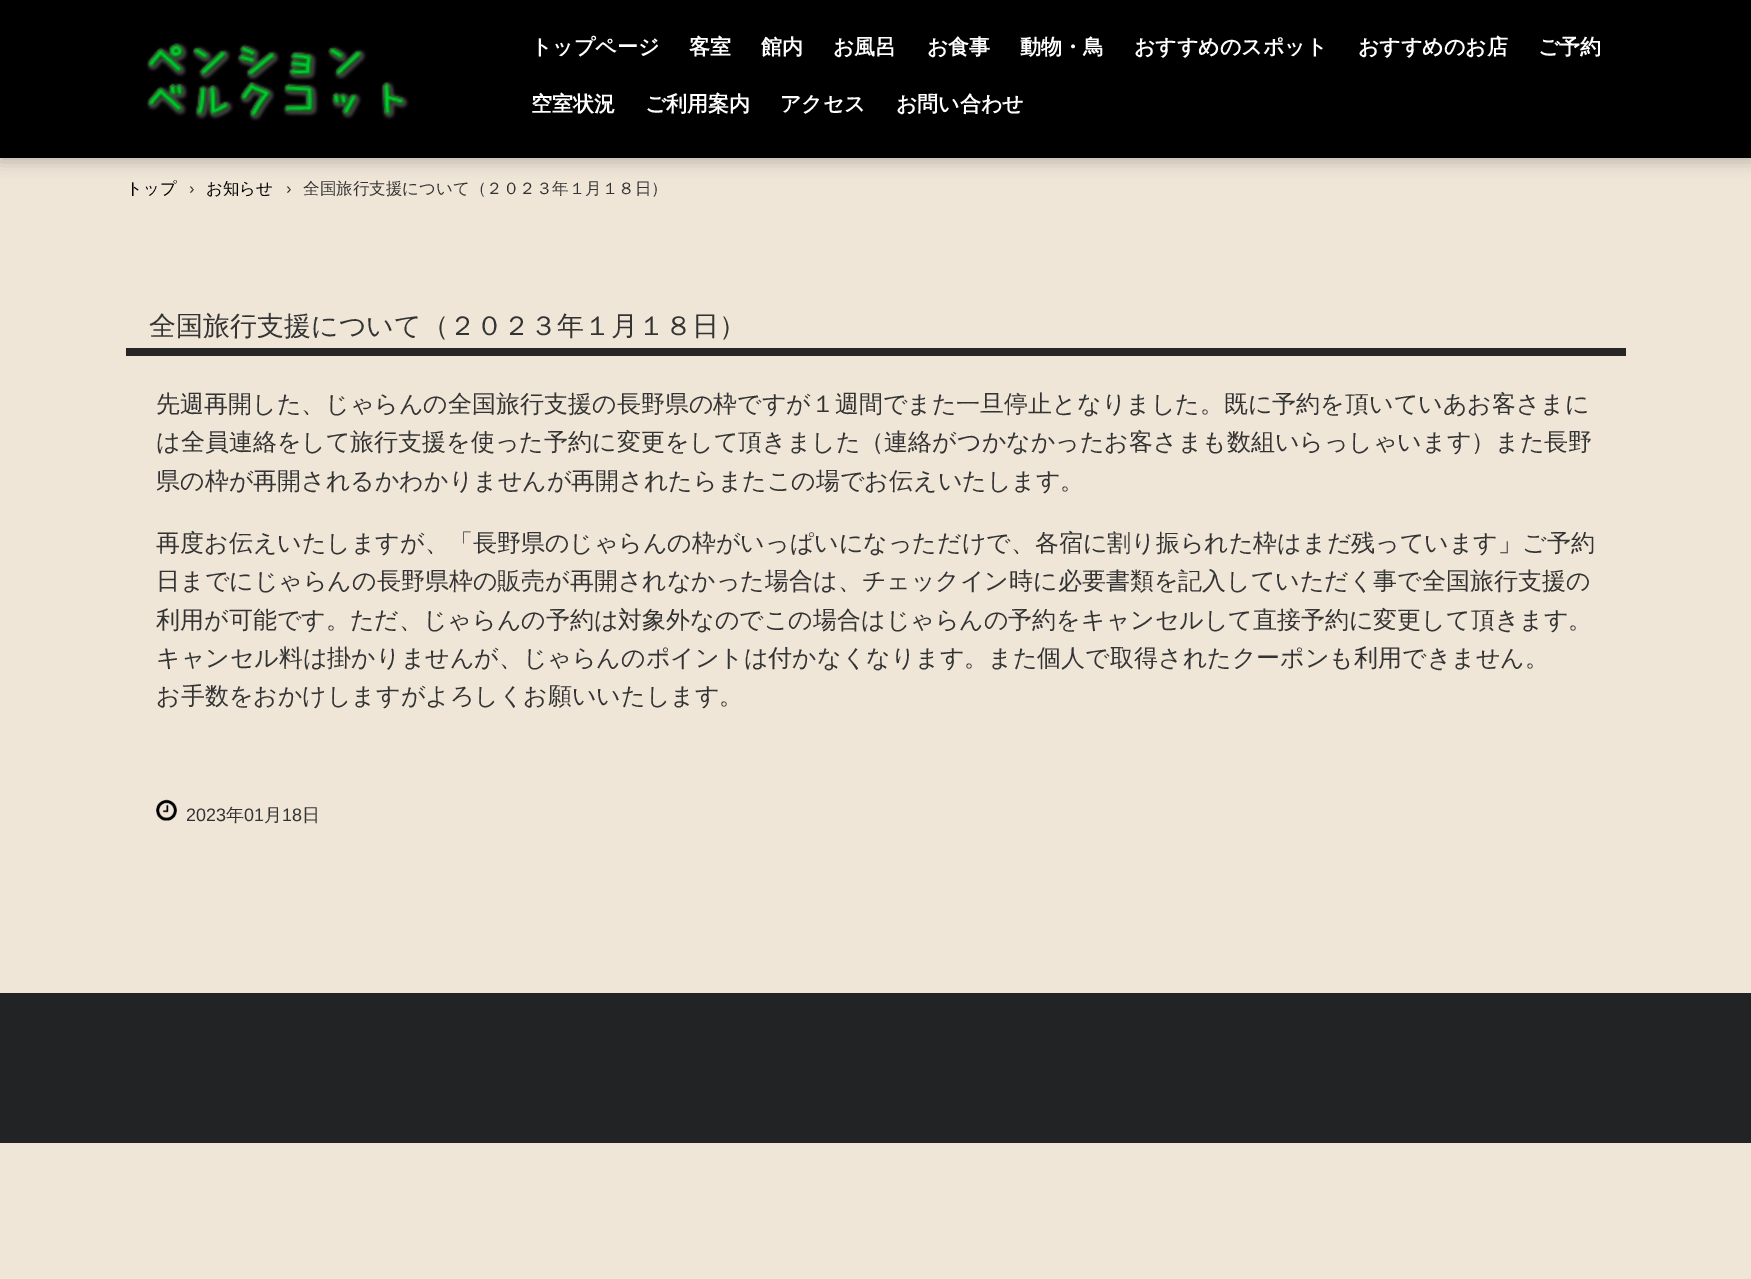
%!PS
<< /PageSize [1751 1279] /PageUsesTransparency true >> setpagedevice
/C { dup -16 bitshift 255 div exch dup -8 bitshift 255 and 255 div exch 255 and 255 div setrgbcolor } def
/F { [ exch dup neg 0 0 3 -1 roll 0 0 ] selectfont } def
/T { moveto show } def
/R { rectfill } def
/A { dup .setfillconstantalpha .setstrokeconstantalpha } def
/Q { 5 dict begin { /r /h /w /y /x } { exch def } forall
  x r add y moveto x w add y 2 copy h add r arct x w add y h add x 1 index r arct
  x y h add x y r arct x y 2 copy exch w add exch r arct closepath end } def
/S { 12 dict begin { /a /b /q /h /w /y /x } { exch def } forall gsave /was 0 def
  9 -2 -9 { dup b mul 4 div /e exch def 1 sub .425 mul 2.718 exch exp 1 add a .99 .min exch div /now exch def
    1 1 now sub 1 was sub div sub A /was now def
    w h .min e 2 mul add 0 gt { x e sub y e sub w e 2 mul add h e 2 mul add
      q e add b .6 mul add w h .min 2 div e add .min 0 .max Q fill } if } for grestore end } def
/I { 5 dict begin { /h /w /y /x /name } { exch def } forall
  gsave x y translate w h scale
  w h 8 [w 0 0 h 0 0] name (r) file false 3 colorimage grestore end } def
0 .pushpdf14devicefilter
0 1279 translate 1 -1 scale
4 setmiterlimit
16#EFE6D8 C
0 0 1751 1279 R
16#000000 C
0 5 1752 157 0 7.5 .2 S
0 0 1751 158 R
(1.rgb) 146 42 263 79 I
/WenQuanYiZenHei-Bold 21 F
16#FFFFFF C
(トップページ) 531 54 T
(客室) 689 54 T
(館内) 761 54 T
(お風呂) 833 54 T
(お食事) 927 54 T
(動物・鳥) 1020 54 T
(おすすめのスポット) 1134 54 T
(おすすめのお店) 1358 54 T
(ご予約) 1538 54 T
(空室状況) 531 111 T
(ご利用案内) 645 111 T
(アクセス) 780 111 T
(お問い合わせ) 896 111 T
/WenQuanYiZenHei-Medium 16.5 F
16#000000 C
(トップ) 126 194 T
/LiberationSans-Regular 16.5 F
16#333333 C
(›) 189 194 T
/WenQuanYiZenHei-Medium 16.5 F
16#000000 C
(お知らせ) 206 194 T
/LiberationSans-Regular 16.5 F
16#333333 C
(›) 286 194 T
/WenQuanYiZenHei-Medium 16.5 F
(全国旅行支援について（２０２３年１月１８日）) 303 194 T
16#262626 C
126 348 1500 8 R
/WenQuanYiZenHei-Medium 27 F
16#333333 C
(全国旅行支援について（２０２３年１月１８日）) 149 335 T
/WenQuanYiZenHei-Medium 24 F
(先週再開した、じゃらんの全国旅行支援の長野県の枠ですが１週間でまた一旦停止となりました。既に予約を頂いていあお客さまに) 156 412 T
(は全員連絡をして旅行支援を使った予約に変更をして頂きました（連絡がつかなかったお客さまも数組いらっしゃいます）また長野) 156 450 T
(県の枠が再開されるかわかりませんが再開されたらまたこの場でお伝えいたします。) 156 489 T
(再度お伝えいたしますが、「長野県のじゃらんの枠がいっぱいになっただけで、各宿に割り振られた枠はまだ残っています」ご予約) 156 551 T
(日までにじゃらんの長野県枠の販売が再開されなかった場合は、チェックイン時に必要書類を記入していただく事で全国旅行支援の) 156 589 T
(利用が可能です。ただ、じゃらんの予約は対象外なのでこの場合はじゃらんの予約をキャンセルして直接予約に変更して頂きます。) 156 628 T
(キャンセル料は掛かりませんが、じゃらんのポイントは付かなくなります。また個人で取得されたクーポンも利用できません。) 156 666 T
(お手数をおかけしますがよろしくお願いいたします。) 156 704 T
(2.rgb) 156 799 21 22 I
/LiberationSans-Regular 18 F
(2023) 186 821 T
/WenQuanYiZenHei-Medium 18 F
(年) 226 821 T
/LiberationSans-Regular 18 F
(01) 244 821 T
/WenQuanYiZenHei-Medium 18 F
(月) 264 821 T
/LiberationSans-Regular 18 F
(18) 282 821 T
/WenQuanYiZenHei-Medium 18 F
(日) 302 821 T
16#222324 C
0 993 1751 150 R
.poppdf14devicefilter showpage
